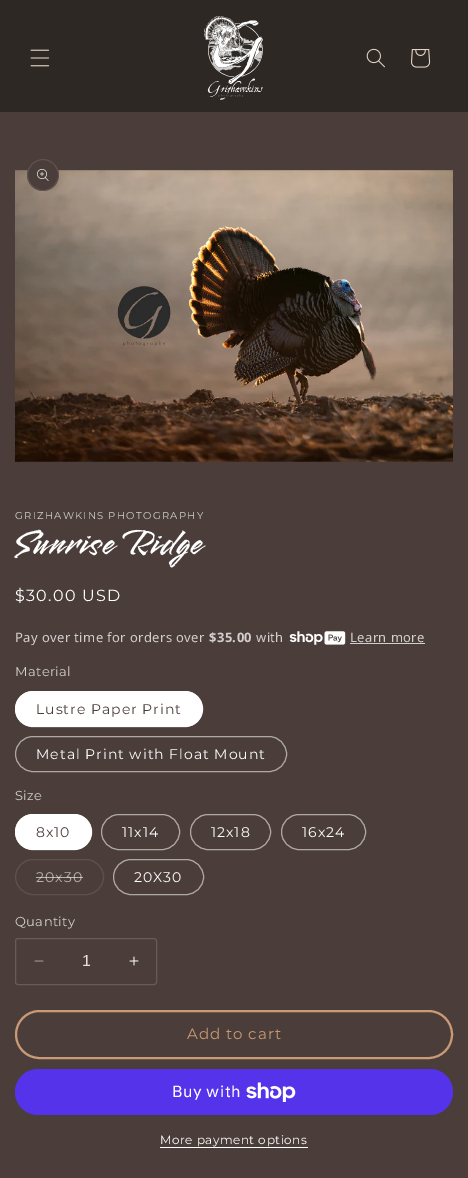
%!PS
<< /PageSize [468 1178] /PageUsesTransparency true >> setpagedevice
/m/moveto load def
/f/fill load def
/s/stroke load def
/w/setlinewidth load def
/C { dup -16 bitshift 255 div exch dup -8 bitshift 255 and 255 div exch 255 and 255 div setrgbcolor } def
/F { [ exch dup neg 0 0 3 -1 roll 0 0 ] selectfont } def
/T { moveto show } def
/R { rectfill } def
/A { dup .setfillconstantalpha .setstrokeconstantalpha } def
/O { newpath 0 360 arc closepath } def
/Q { 5 dict begin { /r /h /w /y /x } { exch def } forall
  x r add y moveto x w add y 2 copy h add r arct x w add y h add x 1 index r arct
  x y h add x y r arct x y 2 copy exch w add exch r arct closepath end } def
/I { 5 dict begin { /h /w /y /x /name } { exch def } forall
  gsave x y translate w h scale
  w h 8 [w 0 0 h 0 0] name (r) file false 3 colorimage grestore end } def
0 .pushpdf14devicefilter
0 1178 translate 1 -1 scale
4 setmiterlimit
16#4B3E3A C
0 0 468 1178 R
16#2E2824 C
0 0 468 112 R
(1.rgb) 30 49 20 18 I
(2.rgb) 204 16 59 84 I
(3.rgb) 366 48 19 20 I
(4.rgb) 411 49 20 19 I
(6.rgb) 15 170 438 292 I
16#4B3E3A C
43 175 16 O f
0.1 A
16#FFFFFF C
43 175 15.5 O s
1 A
(5.rgb) 37 169 12 12 I
/Montserrat-Regular 10 F
16#D2CFCE C
15 519 m 1.3 0 (GRIZHAWKINS PHOTOGRAPHY) ashow
/Smooch-Regular 37.5 F
16#FFFFFF C
15 554 m .75 0 (Sunrise Ridge) ashow
/Montserrat-Regular 16 F
15 601 m 1.3 0 ($30.00 USD) ashow
/NotoSans-Regular 13 F
16#D2CFCE C
15 642 m .4 0 (Pay over time for orders over) ashow
/NotoSans-Bold 13 F
209 642 m .4 0 ($35.00) ashow
/NotoSans-Regular 13 F
256 642 m .4 0 (with) ashow
(7.rgb) 289 631 57 14 I
350 642 m .4 0 (Learn more) ashow
350 643 75 1 R
/Montserrat-Regular 13 F
15 676 m .4 0 (Material) ashow
16#FFFFFF C
15 691 188 36 18 Q f
0.55 A
15.5 691.5 187 35 17.5 Q s
/Montserrat-Regular 14 F
1 A
16#4B3E3A C
36 714 m 1 0 (Lustre Paper Print) ashow
16#AEA8A6 C
15.5 736.5 271 35 17.5 Q s
16#FFFFFF C
36 759 m 1 0 (Metal Print with Float Mount) ashow
/Montserrat-Regular 13 F
16#D2CFCE C
15 800 m .4 0 (Size) ashow
16#FFFFFF C
15 814 77 36 18 Q f
0.55 A
15.5 814.5 76 35 17.5 Q s
/Montserrat-Regular 14 F
1 A
16#4B3E3A C
36 837 m 1 0 (8x10) ashow
16#AEA8A6 C
101.5 814.5 78 35 17.5 Q s
16#FFFFFF C
122 837 m 1 0 (11x14) ashow
16#AEA8A6 C
190.5 814.5 80 35 17.5 Q s
16#FFFFFF C
211 837 m 1 0 (12x18) ashow
16#AEA8A6 C
281.5 814.5 84 35 17.5 Q s
16#FFFFFF C
302 837 m 1 0 (16x24) ashow
16#5D514E C
15.5 859.5 88 35 17.5 Q s
16#B7B2B0 C
36 882 m 1 0 (20x30) ashow
0.6 A
16#FFFFFF C
36 877 47 1 R
1 A
16#AEA8A6 C
113.5 859.5 90 35 17.5 Q s
16#FFFFFF C
134 882 m 1 0 (20X30) ashow
/Montserrat-Regular 13 F
16#D2CFCE C
15 926 m .4 0 (Quantity) ashow
(8.rgb) 34 960 10 2 I
(9.rgb) 129 956 10 10 I
16#665B58 C
15.5 938.5 141 46 2.5 Q s
/LiberationSans-Regular 16 F
16#E4E2E1 C
(1) 82 966 T
16#C99A75 C
2 w
16 1011 436 47 23.5 Q s
/Montserrat-Regular 15 F
187 1039 m 1 0 (Add to cart) ashow
16#5433EB C
15 1069 438 46 23 Q f
/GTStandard-Regular 16 F
16#FFFFFF C
172 1097 m .5 0 (Buy with) ashow
(10.rgb) 246 1082 50 20 I
/Montserrat-Regular 12 F
160 1144 m .5 0 (More payment options) ashow
160 1147 148 1 R
.poppdf14devicefilter showpage
